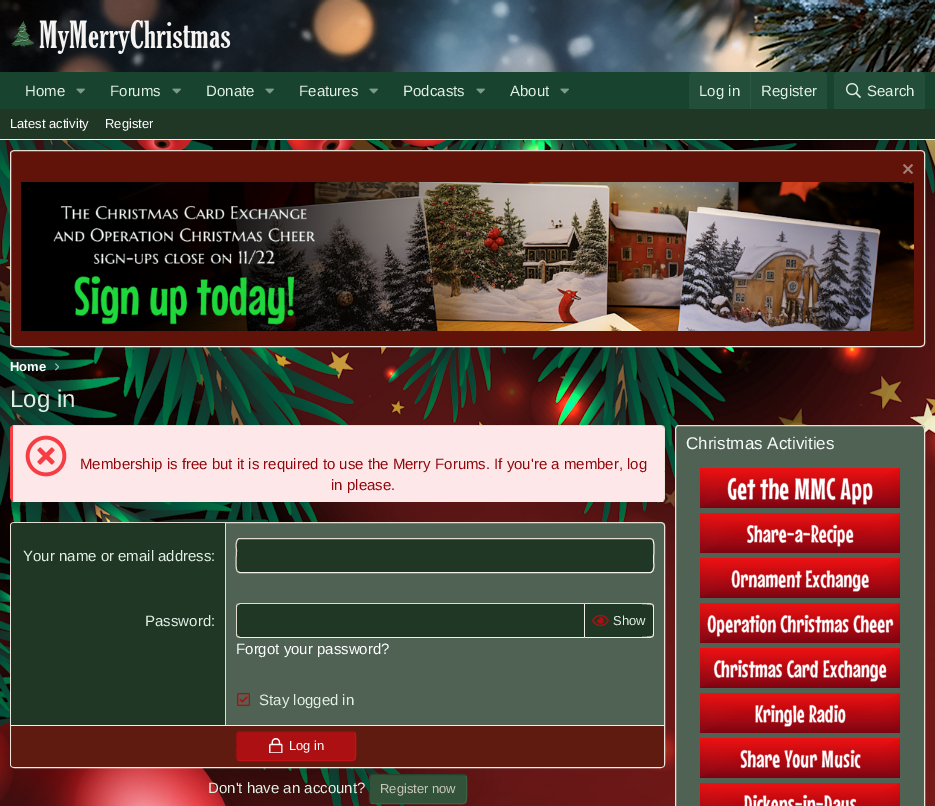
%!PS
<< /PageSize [935 806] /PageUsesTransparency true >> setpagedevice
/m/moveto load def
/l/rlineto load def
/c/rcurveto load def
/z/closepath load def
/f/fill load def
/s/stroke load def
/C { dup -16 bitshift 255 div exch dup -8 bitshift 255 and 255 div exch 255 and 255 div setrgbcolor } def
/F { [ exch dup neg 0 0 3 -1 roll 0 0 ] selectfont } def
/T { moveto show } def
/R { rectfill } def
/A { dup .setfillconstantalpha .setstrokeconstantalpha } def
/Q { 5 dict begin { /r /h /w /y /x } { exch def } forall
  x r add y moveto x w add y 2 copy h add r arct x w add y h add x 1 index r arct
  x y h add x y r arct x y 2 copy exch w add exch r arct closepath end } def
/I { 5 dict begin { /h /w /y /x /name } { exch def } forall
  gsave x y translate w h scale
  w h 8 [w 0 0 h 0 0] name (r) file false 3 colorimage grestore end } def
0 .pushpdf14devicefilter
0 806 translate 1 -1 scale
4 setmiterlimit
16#FFFFFF C
0 0 935 806 R
(1.rgb) 0 140 935 666 I
(2.rgb) 0 0 935 72 I
(3.rgb) 11 20 220 34 I
16#18442F C
0 72 935 37 R
/LiberationSans-Regular 15 F
16#E1EFE4 C
(Home) 25 96 T
(4.rgb) 76 88 9 6 I
(Forums) 110 96 T
(4.rgb) 172 88 9 6 I
(Donate) 206 96 T
(4.rgb) 265 88 9 6 I
(Features) 299 96 T
(4.rgb) 369 88 9 6 I
(Podcasts) 403 96 T
(4.rgb) 476 88 9 6 I
(About) 510 96 T
(4.rgb) 560 88 9 6 I
16#234F3A C
693 72 m 130 0 l 2 0 4 2 4 4 c 0 33 l -138 0 l 0 -33 l 0 -2 2 -4 4 -4 c z f
16#E1EFE4 C
(Log in) 699 96 T
16#2C5944 C
750 72 1 37 R
16#E1EFE4 C
(Register) 761 96 T
16#234F3A C
838 72 m 83 0 l 2 0 4 2 4 4 c 0 33 l -91 0 l 0 -33 l 0 -2 2 -4 4 -4 c z f
(5.rgb) 846 83 15 15 I
16#E1EFE4 C
(Search) 867 96 T
16#203725 C
0 109 935 30 R
16#F2EFE8 C
0 139 935 1 R
/LiberationSans-Regular 13 F
16#FFFFFF C
(Latest activity) 10 128 T
(Register) 105 128 T
16#621309 C
10 150 915 197 4 Q f
16#E4DCCE C
11.5 151.5 m 2.5 -1 l 907 0 l 2.5 1 l s
16#EBE5DB C
923.5 151.5 m .5 .5 1 1.5 1 2.5 c 0 189 l 0 1 -.5 2 -1 2.5 c s
16#F2EFE8 C
923.5 345.5 m -2.5 1 l -907 0 l -2.5 -1 l s
16#EBE5DB C
11.5 345.5 m -.5 -.5 -1 -1.5 -1 -2.5 c 0 -189 l 0 -1 .5 -2 1 -2.5 c s
(6.rgb) 903 164 10 10 I
(7.rgb) 21 182 893 149 I
/LiberationSans-Bold 13 F
16#FFFFFF C
(Home) 10 371 T
(8.rgb) 55 363 4 8 I
/LiberationSans-Regular 24 F
16#E1EFE4 C
(Log in) 10 407 T
16#506254 C
675 425 250 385 4 Q f
16#E4DCCE C
676.5 426.5 m .5 -.5 1.5 -1 2.5 -1 c 242 0 l 1 0 2 .5 2.5 1 c s
16#EBE5DB C
923.5 426.5 m 1 2.5 l 0 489 l -1 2.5 l s
676.5 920.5 m -1 -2.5 l 0 -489 l 1 -2.5 l s
/LiberationSans-Regular 17 F
16#F7FDFA C
(Christmas Activities) 686 449 T
(9.rgb) 700 468 200 40 I
(10.rgb) 700 513 200 40 I
(11.rgb) 700 558 200 40 I
(12.rgb) 700 603 200 40 I
(13.rgb) 700 648 200 40 I
(14.rgb) 700 693 200 40 I
(15.rgb) 700 738 200 40 I
(16.rgb) 700 783 200 23 I
16#FEE7E8 C
14 426 m 647 0 l 2 0 3 1 3 3 c 0 69 l 0 2 -1 3 -3 3 c -647 0 l -1 0 -1 -1 -1 -3 c 0 -69 l 0 -2 0 -3 1 -3 c z f
16#E4DCCE C
14 425 m -2 1 l 1 0 l 648 0 l 2 1 l 1 -1 l -3 -1 l z f
16#EBE5DB C
665 498 m 0 -69 l -1 -3 l -1 1 l 1 2 l 0 11 l 0 7 1 58 -1 60 c 1 1 l z f
16#F2EFE8 C
14 502 m 647 0 l 1 0 2 0 3 -1 c -1 -1 l -2 1 l -648 0 l -1 0 l z f
16#F53D43 C
10 429 m 0 69 l 2 3 l 1 0 l 0 -3 l 0 -72 l -1 0 l -1 0 -2 2 -2 3 c z f
(17.rgb) 25 435 42 42 I
/LiberationSans-Regular 15 F
16#91080C C
(Membership is free but it is required to use the Merry Forums. If you're a member, log) 80 469 T
(in please.) 331 490 T
16#506254 C
10 522 655 246 4 Q f
16#E4DCCE C
11.5 523.5 m 2.5 -1 l 647 0 l 2.5 1 l s
16#EBE5DB C
663.5 523.5 m .5 .5 1 1.5 1 2.5 c 0 238 l 0 1 -.5 2 -1 2.5 c s
16#F2EFE8 C
663.5 766.5 m -2.5 1 l -647 0 l -2.5 -1 l s
16#EBE5DB C
11.5 766.5 m -.5 -.5 -1 -1.5 -1 -2.5 c 0 -238 l 0 -1 .5 -2 1 -2.5 c s
16#203725 C
14 523 m 212 0 l 0 65 l -215 0 l 0 -62 l 0 -1.5 1.5 -3 3 -3 c z f
16#E4DCCE C
225 523 1 202 R
16#E1EFE4 C
(Your name or email address:) 23 561 T
16#203725 C
236 538 418 35 4 Q f
16#F2EFE8 C
652.5 539.5 m 2.5 2.5 1 17 1 20.5 c 0 2.5 2 11.5 -3 12.5 c -411 0 l -2 -1 l s
16#E4DCCE C
237.5 571.5 m -2.5 -2.5 -1 -17 -1 -20.5 c 0 -2.5 -2 -11.5 3 -12.5 c 411 0 l 2 1 l s
16#203725 C
11 588 214 137 R
16#E1EFE4 C
(Password:) 145 626 T
16#203725 C
240 603 m 344 0 l 0 35 l -344 0 l -2 0 -4 -2 -4 -4 c 0 -27 l 0 -2 2 -4 4 -4 c z f
16#E4DCCE C
240 603 m -3 1 l 1 1 l 2 -1 l 344 0 l 0 -1 l z f
16#F2EFE8 C
584 638 m 0 -1 l -344 0 l -2 -1 l -1 1 l 3 1 l z f
16#E4DCCE C
236 607 m 0 27 l 0 1 .5 2 1 3 c 1 -1 l -1 0 -1 -1 -1 -2 c 0 -27 l 0 -1 0 -2 1 -2 c -1 -1 l -.5 1 -1 2 -1 3 c z f
16#203725 C
584 603 m 66 0 l 2 0 4 2 4 4 c 0 27 l 0 2 -2 4 -4 4 c -66 0 l z f
16#E4DCCE C
584 603 m 1 1 l 7 0 66 -1 67 1 c 1 -1 l -3 -1 l z f
16#F2EFE8 C
654 634 m 0 -27 l 0 -1 -.5 -2 -1 -3 c -1 1 l 1 0 1 1 1 2 c 0 27 l 0 1 0 2 -1 2 c 1 1 l .5 -1 1 -2 1 -3 c z f
650 638 m 3 -1 l -1 -1 l -1 2 -60 1 -67 1 c -1 1 l z f
584 603 m 0 35 l 1 -1 l 0 -33 l z f
(18.rgb) 592 614 17 13 I
/LiberationSans-Regular 13 F
16#E1EFE4 C
(Show) 613 625 T
/LiberationSans-Regular 15 F
16#FFFFFF C
(Forgot your password?) 236 654 T
(19.rgb) 237 692 13 15 I
16#E1EFE4 C
(Stay logged in) 259 705 T
0.9 A
16#621309 C
11 725 m 653 0 l 0 39 l 0 1.5 -1.5 3 -3 3 c -647 0 l -1.5 0 -3 -1.5 -3 -3 c z f
1 A
16#F2EFE8 C
11 725 653 1 R
16#AD1013 C
236 731 120 30 4 Q f
16#C41215 C
354.5 732.5 m 2 2 1 10.5 1 13.5 c 0 7.5 l 0 2.5 .5 7 -3.5 7 c -112.5 0 l -2 -1 l s
16#950E10 C
237.5 759.5 m -2 -2 -1 -10.5 -1 -13.5 c 0 -7.5 l 0 -2.5 -.5 -7 3.5 -7 c 112.5 0 l 2 1 l s
(20.rgb) 269 738 14 15 I
/LiberationSans-Regular 13 F
16#FFFFFF C
(Log in) 289 750 T
/LiberationSans-Regular 15 F
16#E1EFE4 C
(Don't have an account?) 208 793 T
16#325239 C
369 774 98 30 4 Q f
16#3C6244 C
465.5 775.5 m 2 2 1 10.5 1 13.5 c 0 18 2 14.5 -18.5 14.5 c -75 0 l -2.5 -1 l s
16#29422E C
370.5 802.5 m -2 -2 -1 -10.5 -1 -13.5 c 0 -18 -2 -14.5 18.5 -14.5 c 75 0 l 2.5 1 l s
/LiberationSans-Regular 13 F
16#C9C7B5 C
(Register now) 380 793 T
.poppdf14devicefilter showpage
